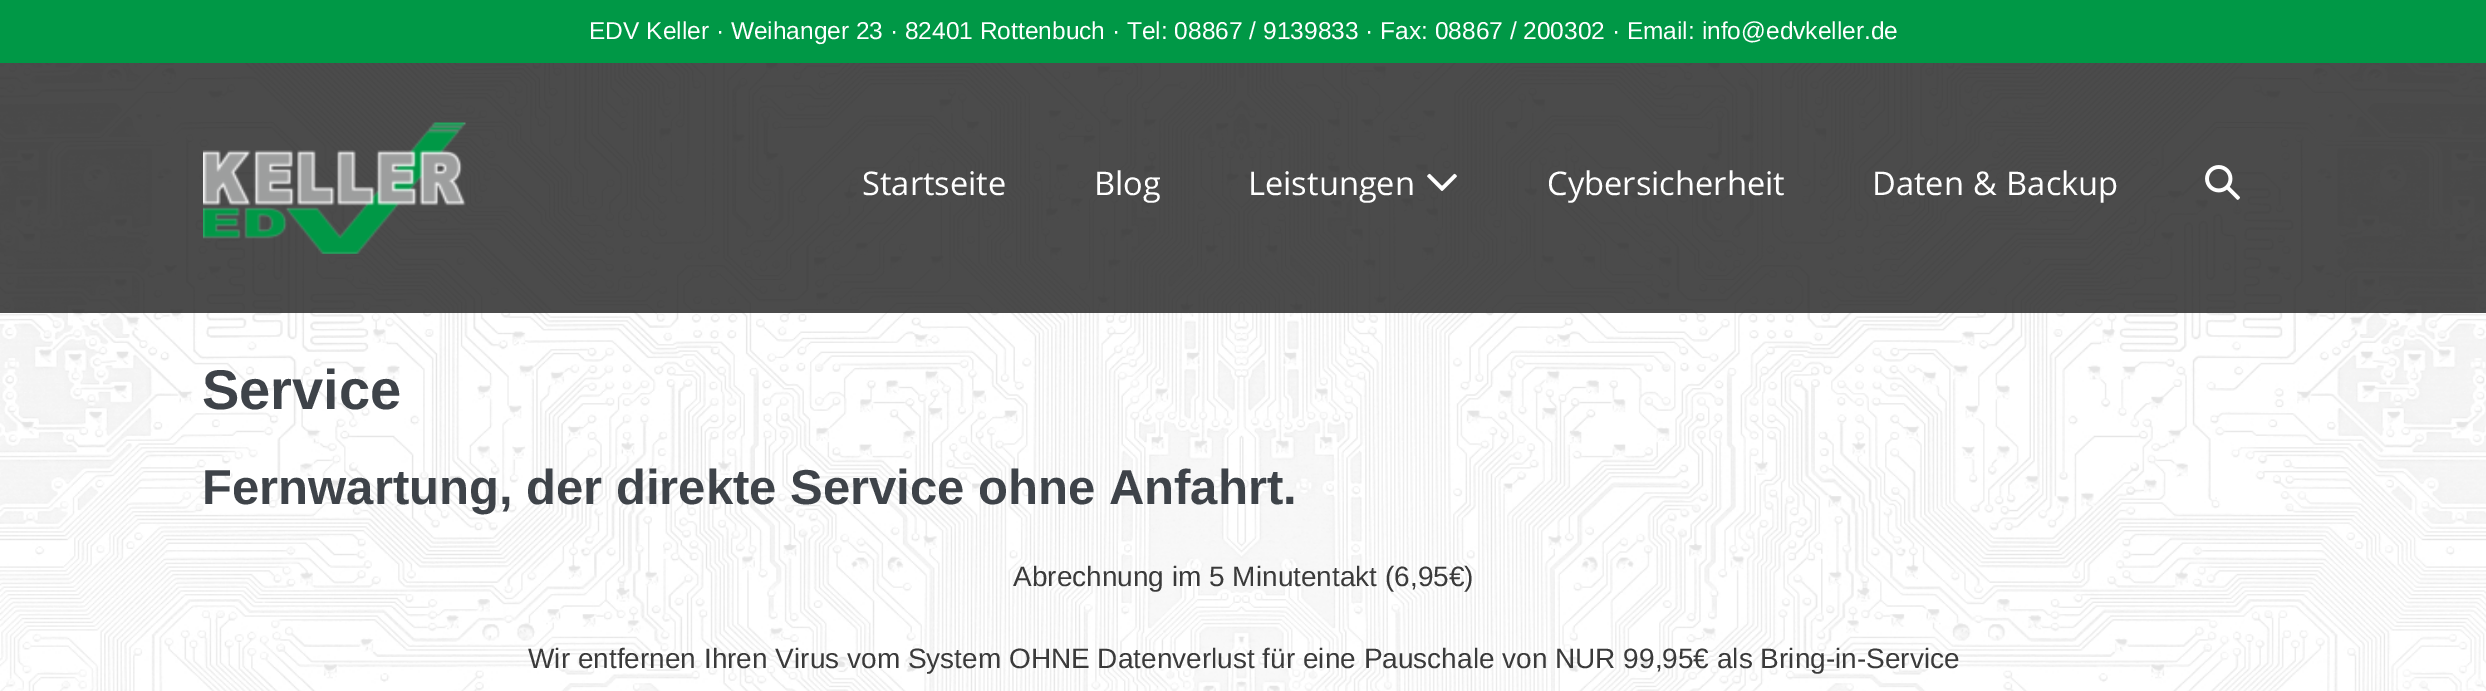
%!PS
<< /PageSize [2486 691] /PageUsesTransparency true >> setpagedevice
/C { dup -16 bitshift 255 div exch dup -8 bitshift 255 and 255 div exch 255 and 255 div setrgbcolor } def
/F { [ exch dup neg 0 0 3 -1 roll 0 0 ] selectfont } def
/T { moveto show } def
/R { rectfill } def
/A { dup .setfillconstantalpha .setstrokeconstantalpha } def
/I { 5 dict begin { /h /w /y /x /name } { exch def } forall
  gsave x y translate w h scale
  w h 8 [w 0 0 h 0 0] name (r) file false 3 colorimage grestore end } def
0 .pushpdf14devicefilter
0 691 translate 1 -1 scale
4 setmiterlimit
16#FFFFFF C
0 0 2486 691 R
(1.rgb) 0 63 2486 628 I
16#009846 C
0 0 2486 63 R
/LiberationSans-Regular 24.5 F
16#FFFFFF C
(EDV Keller · Weihanger 23 · 82401 Rottenbuch · Tel: 08867 / 9139833 · Fax: 08867 / 200302 · Email: info@edvkeller.de) 589 39 T
0.84 A
16#292929 C
0 63 2486 250 R
1 A
(2.rgb) 203 122 263 132 I
/Khula-Regular 35 F
16#FFFFFF C
(Startseite) 862 195 T
(Blog) 1094 195 T
(Leistungen) 1248 195 T
(3.rgb) 1427 173 30 18 I
(Cybersicherheit) 1547 195 T
(Daten & Backup) 1872 195 T
(4.rgb) 2205 165 35 35 I
/LiberationSans-Bold 56 F
16#3E4349 C
(Service) 202 409 T
/LiberationSans-Bold 49 F
(Fernwartung, der direkte Service ohne Anfahrt.) 202 504 T
/LiberationSans-Regular 28 F
16#3A3A3A C
(Abrechnung im 5 Minutentakt \(6,95€\)) 1013 586 T
(Wir entfernen Ihren Virus vom System OHNE Datenverlust für eine Pauschale von NUR 99,95€ als Bring-in-Service) 528 668 T
.poppdf14devicefilter showpage
